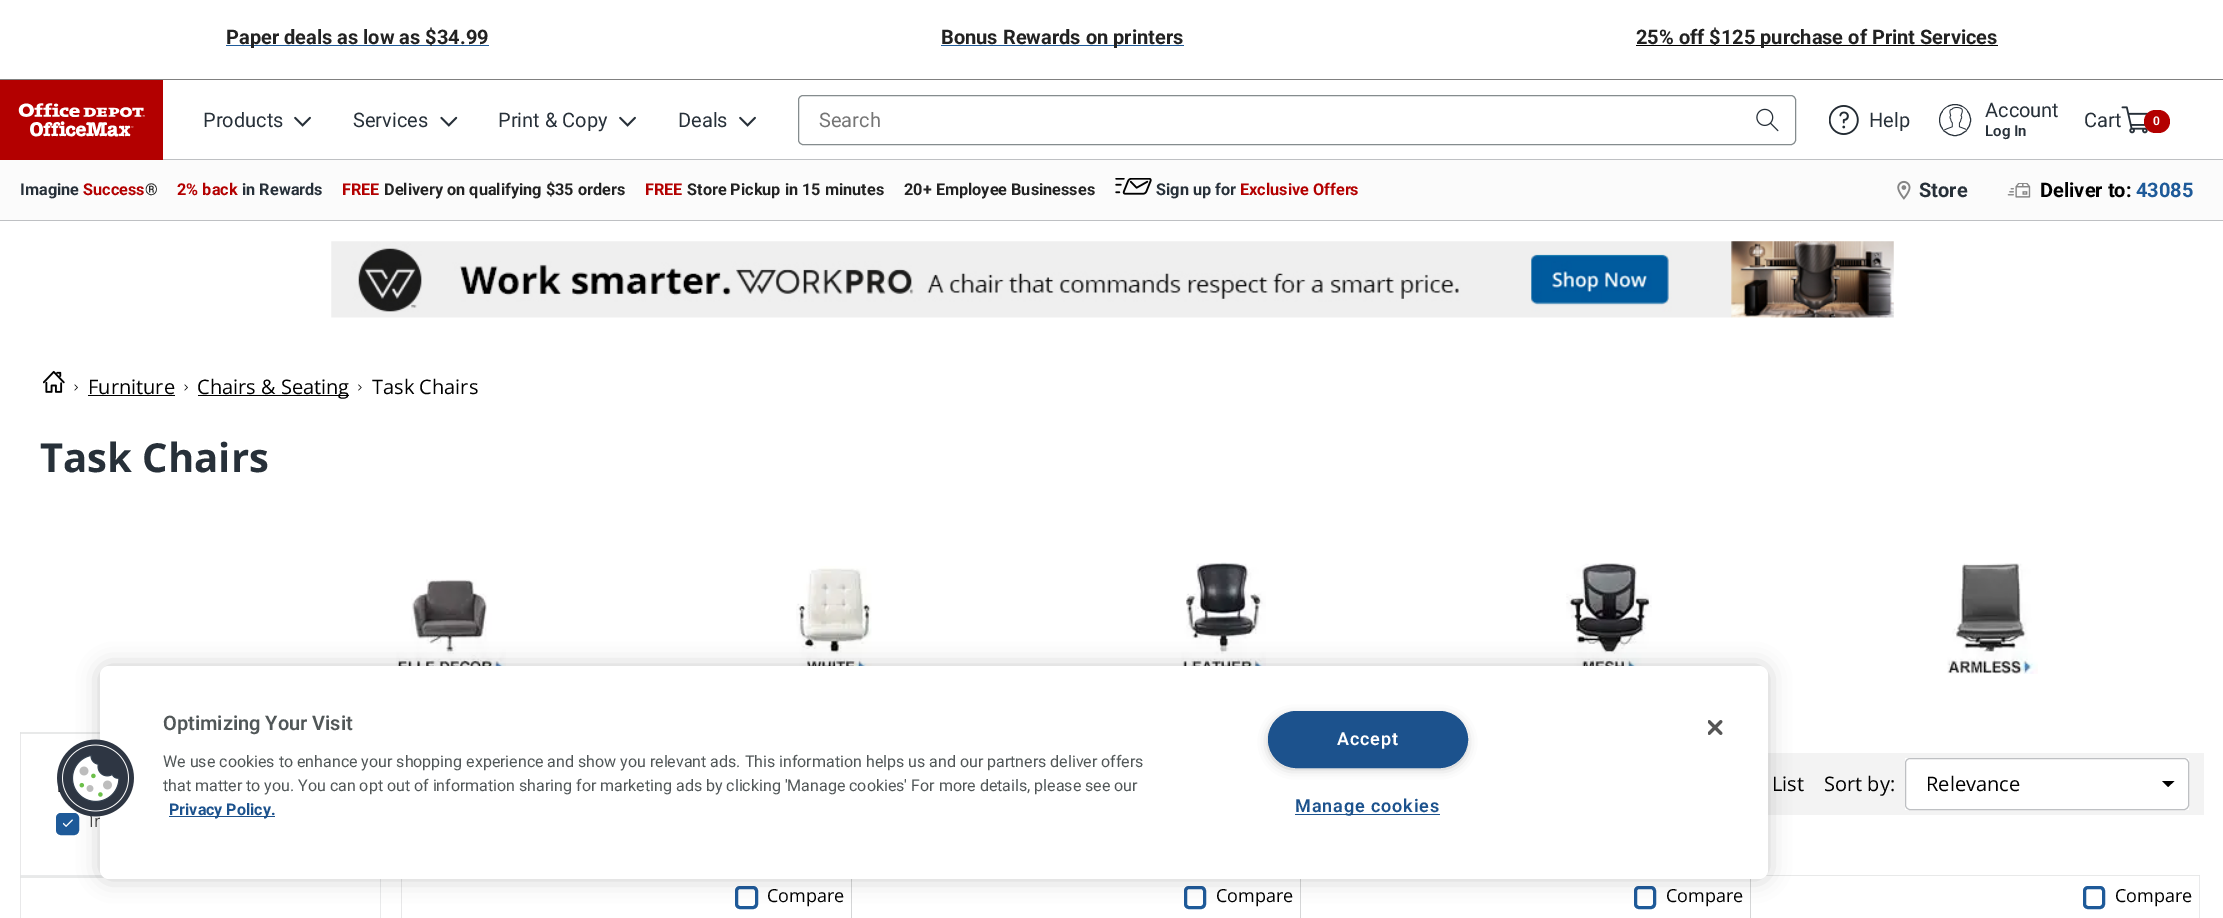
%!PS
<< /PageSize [2223 918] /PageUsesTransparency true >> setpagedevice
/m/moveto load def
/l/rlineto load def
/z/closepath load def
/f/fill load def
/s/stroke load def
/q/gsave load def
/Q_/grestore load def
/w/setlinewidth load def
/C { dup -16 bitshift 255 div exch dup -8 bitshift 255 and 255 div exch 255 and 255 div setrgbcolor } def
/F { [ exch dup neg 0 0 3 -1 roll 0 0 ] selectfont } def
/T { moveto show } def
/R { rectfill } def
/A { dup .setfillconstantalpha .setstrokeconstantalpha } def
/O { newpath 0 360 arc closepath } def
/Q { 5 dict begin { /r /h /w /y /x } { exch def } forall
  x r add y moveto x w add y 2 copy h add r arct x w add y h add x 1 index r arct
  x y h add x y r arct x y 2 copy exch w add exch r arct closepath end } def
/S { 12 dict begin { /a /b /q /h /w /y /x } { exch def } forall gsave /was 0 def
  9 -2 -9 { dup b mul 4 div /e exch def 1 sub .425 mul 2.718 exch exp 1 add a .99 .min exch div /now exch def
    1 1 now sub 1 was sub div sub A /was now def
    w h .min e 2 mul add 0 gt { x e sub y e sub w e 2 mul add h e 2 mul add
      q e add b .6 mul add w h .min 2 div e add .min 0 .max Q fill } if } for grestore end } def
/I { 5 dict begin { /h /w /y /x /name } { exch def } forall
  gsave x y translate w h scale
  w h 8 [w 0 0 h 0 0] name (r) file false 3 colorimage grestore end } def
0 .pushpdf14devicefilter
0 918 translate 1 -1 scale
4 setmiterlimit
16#FFFFFF C
0 0 2223 918 R
16#808080 C
0 79 2223 1 R
16#1E5A99 C
226 45 263 1 R
/Roboto-Bold 20 F
16#222222 C
(Paper deals as low as $34.99) 226 44 T
16#1E5A99 C
941 45 243 1 R
16#222222 C
(Bonus Rewards on printers) 941 44 T
16#000000 C
1636 45 362 1 R
16#222222 C
(25% off $125 purchase of Print Services) 1636 44 T
16#BEC0C3 C
163 159 2060 1 R
16#B30000 C
0 80 163 80 R
(1.rgb) 18 103 127 34 I
/Roboto-Regular 20 F
16#273039 C
(Products) 203 127 T
(2.rgb) 294 116 17 11 I
(Services) 353 127 T
(3.rgb) 440 116 18 11 I
(Print & Copy) 498 127 T
(2.rgb) 619 116 17 11 I
(Deals) 678 127 T
(2.rgb) 739 116 17 11 I
16#858C8E C
798.5 95.5 997 49 4.5 Q s
16#757575 C
(Search) 819 127 T
(4.rgb) 1756 108 23 24 I
(5.rgb) 1829 105 30 30 I
16#273039 C
(Help) 1869 127 T
1955 120 15.5 O s
(6.rgb) 1943 107 24 24 I
(Account) 1985 117 T
/Roboto-SemiBold 15 F
(Log In) 1985 136 T
/Roboto-Regular 20 F
(Cart) 2084 127 T
(7.rgb) 2121 106 28 28 I
16#B30000 C
2144 110 26 23 11.5 Q f
/Roboto-SemiBold 12 F
16#FFFFFF C
(0) 2153 125 T
16#FBFBFB C
0 160 2223 60 R
16#BEC0C3 C
0 220 2223 1 R
/Roboto-Bold 16.25 F
16#273039 C
(Imagine) 20 195 T
16#B30000 C
(Success) 83 195 T
16#222222 C
(®) 145 195 T
16#B30000 C
(2% back) 177 195 T
16#273039 C
(in Rewards) 242 195 T
16#B30000 C
(FREE) 342 195 T
16#222222 C
(Delivery on qualifying $35 orders) 384 195 T
16#B30000 C
(FREE) 645 195 T
16#222222 C
(Store Pickup in 15 minutes) 687 195 T
(20+ Employee Businesses) 904 195 T
(8.rgb) 1115 178 37 17 I
16#273039 C
(Sign up for) 1156 195 T
16#B30000 C
(Exclusive Offers) 1240 195 T
(9.rgb) 1897 180 14 20 I
/Roboto-Bold 20 F
16#273039 C
(Store) 1919 197 T
(10.rgb) 2007 183 24 15 I
16#000000 C
(Deliver to:) 2040 197 T
16#1E5A99 C
(43085) 2136 197 T
(11.rgb) 331 241 1563 77 I
(12.rgb) 43 370 22 23 I
(13.rgb) 74 384 4 7 I
/OpenSans-Regular 20 F
16#000000 C
(Furniture) 88 394 T
88 395 87 1 R
(13.rgb) 184 384 4 7 I
198 395 151 1 R
(Chairs & Seating) 197 394 T
(14.rgb) 358 384 4 7 I
(Task Chairs) 372 394 T
/OpenSans-Bold 40 F
16#273039 C
(Task Chairs) 40 472 T
(15.rgb) 396 579 110 87 I
(16.rgb) 796 566 76 100 I
(17.rgb) 1181 562 85 104 I
(18.rgb) 1566 563 86 103 I
(19.rgb) 1947 563 91 111 I
16#E8E9E9 C
20 732 m 361 0 l -1 2 l -359 0 l z f
0.1 A
16#273039 C
381 876 m -361 0 l 1 -1 l 359 0 l z f
16#1A2026 C
20 876 m 0 -144 l 1 2 l 0 141 l z f
1 A
16#1E5A99 C
57.5 814.5 20 19 3.5 Q q f Q_
3 w
s
(20.rgb) 63 819 10 8 I
/OpenSans-Regular 17 F
16#464646 C
(In) 89 827 T
16#E8E9E9 C
20 876 m 361 0 l -1 2 l -359 0 l z f
0.1 A
16#273039 C
381 876 m 0 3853 l -1 -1 l 0 -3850 l z f
16#1A2026 C
20 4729 m 0 -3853 l 1 2 l 0 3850 l z f
1 A
16#F3F3F3 C
1768 753 436 62 R
/OpenSans-Regular 20 F
16#000000 C
(List) 1772 791 T
(Sort by:) 1824 791 T
16#FFFFFF C
1905 758 284 52 R
16#BEC0C3 C
1 w
1905.5 758.5 283 51 4.5 Q s
16#000000 C
(Relevance) 1926 791 T
2168 787 m -6 -6 l 12.5 0 l z f
0.1 A
16#1A2026 C
401 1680 m 0 -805 l 1 1 l 0 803 l z f
1 A
16#1E5A99 C
3 w
736.5 887.5 20 20 3.5 Q s
/OpenSans-Regular 18 F
16#000000 C
(Compare) 767 902 T
16#D5D6D7 C
851 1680 m 0 -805 l 1 1 l 0 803 l z f
16#1E5A99 C
1185.5 887.5 19 20 3.5 Q s
16#000000 C
(Compare) 1216 902 T
16#D5D6D7 C
1300 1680 m 0 -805 l 1 1 l 0 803 l z f
16#1E5A99 C
1635.5 887.5 19 20 3.5 Q s
16#000000 C
(Compare) 1666 902 T
16#E8E9E9 C
1750 875 m 450 0 l -1 1 l -448 0 l z f
0.1 A
16#273039 C
2200 875 m 0 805 l -1 -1 l 0 -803 l z f
1 A
16#D5D6D7 C
1750 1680 m 0 -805 l 1 1 l 0 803 l z f
16#1E5A99 C
2084.5 887.5 19 20 3.5 Q s
16#000000 C
(Compare) 2115 902 T
100 666 1668 213 9 11 .2 S
16#FFFFFF C
100 666 1668 213 9 Q f
(21.rgb) 57 739 77 78 I
/Roboto-SemiBold 20 F
16#515758 C
(Optimizing Your Visit) 163 730 T
/Roboto-Regular 16 F
(We use cookies to enhance your shopping experience and show you relevant ads. This information helps us and our partners deliver offers) 163 767 T
(that matter to you. You can opt out of information sharing for marketing ads by clicking 'Manage cookies' For more details, please see our) 163 791 T
16#1C528D C
169 816 106 1 R
/Roboto-Bold 16 F
(Privacy Policy.) 169 815 T
16#999999 C
1271 718 193 48 24 6 1 S
16#1C528D C
1268.5 711.5 199 56 28 Q q f Q_
1 w
s
/Roboto-SemiBold 18 F
16#FFFFFF C
1337 745 m .9 0 (Accept) ashow
16#1C528D C
1295 814 145 1 R
1295 812 m .9 0 (Manage cookies) ashow
(22.rgb) 1708 720 15 15 I
.poppdf14devicefilter showpage
